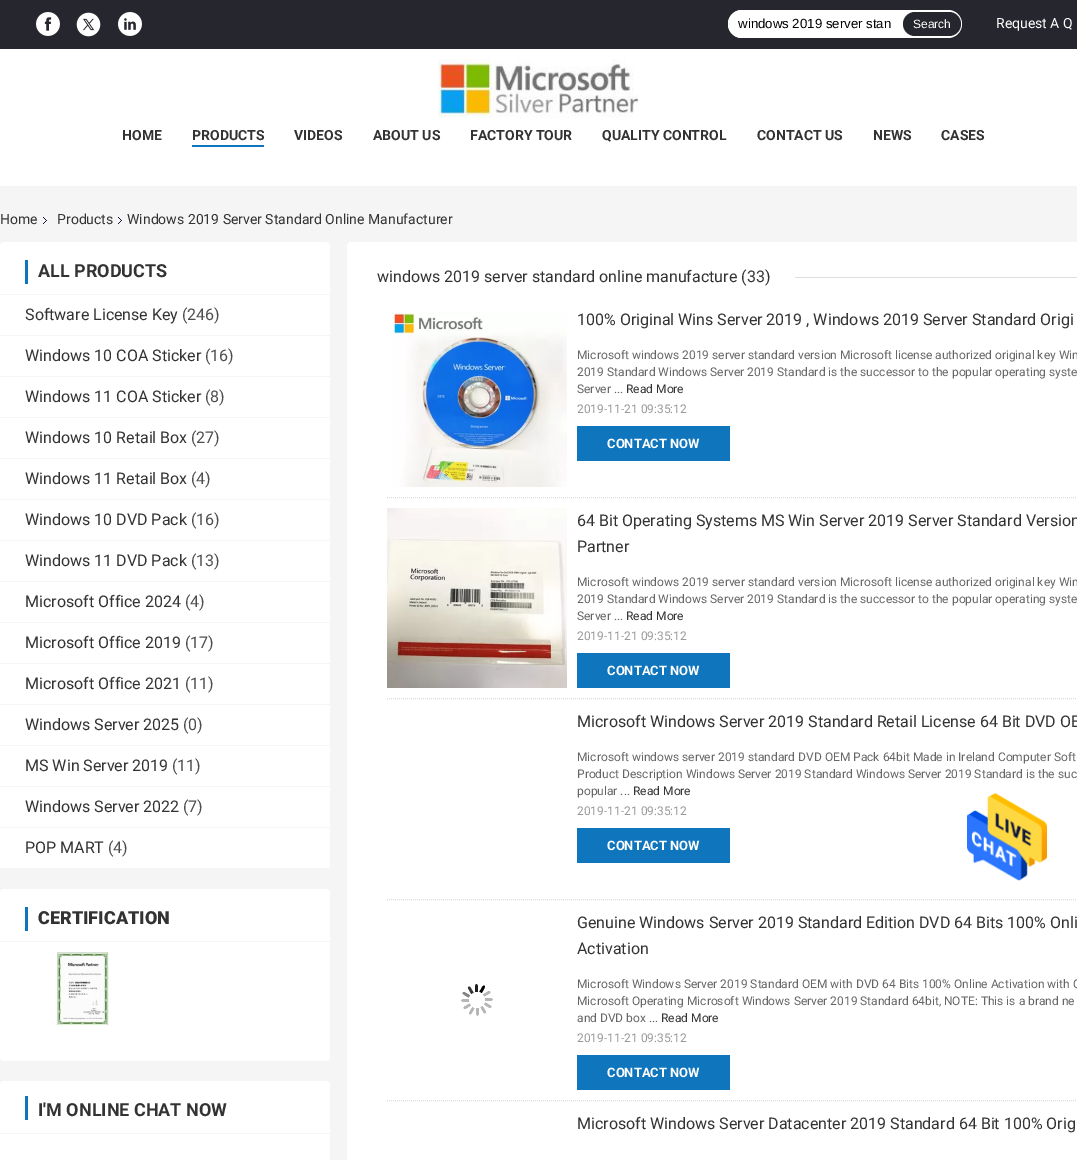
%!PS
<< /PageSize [1077 1160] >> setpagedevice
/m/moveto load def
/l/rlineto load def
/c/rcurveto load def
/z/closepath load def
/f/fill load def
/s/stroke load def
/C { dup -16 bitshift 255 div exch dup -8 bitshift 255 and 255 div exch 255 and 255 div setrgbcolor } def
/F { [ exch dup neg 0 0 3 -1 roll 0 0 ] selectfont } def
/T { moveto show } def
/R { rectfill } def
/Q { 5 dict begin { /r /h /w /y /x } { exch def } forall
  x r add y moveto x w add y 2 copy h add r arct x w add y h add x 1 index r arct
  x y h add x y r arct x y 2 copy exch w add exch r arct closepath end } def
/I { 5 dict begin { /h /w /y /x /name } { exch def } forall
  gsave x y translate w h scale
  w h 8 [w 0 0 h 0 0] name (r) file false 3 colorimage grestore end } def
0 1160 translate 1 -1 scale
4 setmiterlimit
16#F5F5F5 C
0 0 1077 1160 R
16#FFFFFF C
0 49 1077 137 R
16#26262E C
0 0 1077 49 R
(1.rgb) 36 12 24 24 I
(2.rgb) 76 12 25 25 I
(3.rgb) 118 12 24 24 I
16#FFFFFF C
728 10 234 28 14 Q f
742 10 m 161 0 l 0 28 l -161 0 l -7.5 0 -14 -6.5 -14 -14 c 0 -7.5 6.5 -14 14 -14 c z f
/LiberationSans-Regular 13.25 F
16#000000 C
(windows 2019 server stan) 738 28 T
16#26262E C
903 12 58 24 12 Q f
/LiberationSans-Regular 12 F
16#FFFFFF C
(Search) 913 28 T
/Roboto-Regular 14 F
(Request A Q) 996 28 T
(4.rgb) 438 59 201 60 I
/Roboto-Bold 14 F
16#333333 C
(HOME) 122 140 T
(PRODUCTS) 192 140 T
16#0F75BD C
192 145 72 2 R
16#333333 C
(VIDEOS) 294 140 T
(ABOUT US) 373 140 T
(FACTORY TOUR) 470 140 T
(QUALITY CONTROL) 602 140 T
(CONTACT US) 757 140 T
(NEWS) 873 140 T
(CASES) 941 140 T
/Roboto-Regular 14 F
(Home) 0 224 T
(5.rgb) 43 217 4 7 I
(Products) 57 224 T
(5.rgb) 118 217 4 7 I
(Windows 2019 Server Standard Online Manufacturer) 127 224 T
16#FFFFFF C
0 242 330 627 4 Q f
16#F5F5F5 C
0 294 330 1 R
16#0F75BD C
25 260 3 24 R
/Roboto-Bold 18 F
16#333333 C
(ALL PRODUCTS) 38 277 T
16#F5F5F5 C
0 335 330 1 R
/Roboto-Regular 16 F
16#333333 C
(Software License Key) 25 320 T
16#4E4E4E C
(\(246\)) 182 320 T
16#F5F5F5 C
0 376 330 1 R
16#333333 C
(Windows 10 COA Sticker) 25 361 T
16#4E4E4E C
(\(16\)) 205 361 T
16#F5F5F5 C
0 417 330 1 R
16#333333 C
(Windows 11 COA Sticker) 25 402 T
16#4E4E4E C
(\(8\)) 205 402 T
16#F5F5F5 C
0 458 330 1 R
16#333333 C
(Windows 10 Retail Box) 25 443 T
16#4E4E4E C
(\(27\)) 191 443 T
16#F5F5F5 C
0 499 330 1 R
16#333333 C
(Windows 11 Retail Box) 25 484 T
16#4E4E4E C
(\(4\)) 191 484 T
16#F5F5F5 C
0 540 330 1 R
16#333333 C
(Windows 10 DVD Pack) 25 525 T
16#4E4E4E C
(\(16\)) 191 525 T
16#F5F5F5 C
0 581 330 1 R
16#333333 C
(Windows 11 DVD Pack) 25 566 T
16#4E4E4E C
(\(13\)) 191 566 T
16#F5F5F5 C
0 622 330 1 R
16#333333 C
(Microsoft Office 2024) 25 607 T
16#4E4E4E C
(\(4\)) 185 607 T
16#F5F5F5 C
0 663 330 1 R
16#333333 C
(Microsoft Office 2019) 25 648 T
16#4E4E4E C
(\(17\)) 185 648 T
16#F5F5F5 C
0 704 330 1 R
16#333333 C
(Microsoft Office 2021) 25 689 T
16#4E4E4E C
(\(11\)) 185 689 T
16#F5F5F5 C
0 745 330 1 R
16#333333 C
(Windows Server 2025) 25 730 T
16#4E4E4E C
(\(0\)) 183 730 T
16#F5F5F5 C
0 786 330 1 R
16#333333 C
(MS Win Server 2019) 25 771 T
16#4E4E4E C
(\(11\)) 172 771 T
16#F5F5F5 C
0 827 330 1 R
16#333333 C
(Windows Server 2022) 25 812 T
16#4E4E4E C
(\(7\)) 183 812 T
16#F5F5F5 C
0 868 330 1 R
16#333333 C
(POP MART) 25 853 T
16#4E4E4E C
(\(4\)) 108 853 T
16#FFFFFF C
0 889 330 172 4 Q f
16#F5F5F5 C
0 941 330 1 R
16#0F75BD C
25 907 3 24 R
/Roboto-Black 18 F
16#333333 C
(CERTIFICATION) 38 924 T
(6.rgb) 57 952 52 73 I
16#FFFFFF C
0 1081 330 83 4 Q f
16#F5F5F5 C
0 1133 330 1 R
16#0F75BD C
25 1096 3 24 R
/Roboto-Bold 18 F
16#333333 C
(I'M ONLINE CHAT NOW) 38 1116 T
16#FFFFFF C
347 242 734 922 4 Q f
/Roboto-Regular 16 F
16#333333 C
(windows 2019 server standard online manufacture \(33\)) 377 282 T
16#DDDDDD C
795 277 282 1 R
16#DCDCDC C
[1 1] 0 setdash
387 497.5 m 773 0 l s
(7.rgb) 392 312 175 175 I
16#333333 C
(100% Original Wins Server 2019 , Windows 2019 Server Standard Origi) 577 325 T
16#0F75BD C
577 426 153 35 R
/Roboto-Bold 13 F
16#FFFFFF C
(CONTACT NOW) 607 448 T
/Roboto-Regular 12 F
16#666666 C
(Microsoft windows 2019 server standard version Microsoft license authorized original key Win) 577 359 T
(2019 Standard Windows Server 2019 Standard is the successor to the popular operating syste) 577 376 T
(Server ...) 577 393 T
16#333333 C
(Read More) 626 393 T
16#999999 C
(2019-11-21 09:35:12) 577 413 T
16#DCDCDC C
387 698.5 m 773 0 l s
(8.rgb) 387 508 180 180 I
/Roboto-Regular 16 F
16#333333 C
(64 Bit Operating Systems MS Win Server 2019 Server Standard Version) 577 526 T
(Partner) 577 552 T
16#0F75BD C
577 653 153 35 R
/Roboto-Bold 13 F
16#FFFFFF C
(CONTACT NOW) 607 675 T
/Roboto-Regular 12 F
16#666666 C
(Microsoft windows 2019 server standard version Microsoft license authorized original key Win) 577 586 T
(2019 Standard Windows Server 2019 Standard is the successor to the popular operating syste) 577 603 T
(Server ...) 577 620 T
16#333333 C
(Read More) 626 620 T
16#999999 C
(2019-11-21 09:35:12) 577 640 T
16#DCDCDC C
387 899.5 m 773 0 l s
/Roboto-Regular 16 F
16#333333 C
(Microsoft Windows Server 2019 Standard Retail License 64 Bit DVD OE) 577 727 T
16#0F75BD C
577 828 153 35 R
/Roboto-Bold 13 F
16#FFFFFF C
(CONTACT NOW) 607 850 T
/Roboto-Regular 12 F
16#666666 C
(Microsoft windows server 2019 standard DVD OEM Pack 64bit Made in Ireland Computer Soft) 577 761 T
(Product Description Windows Server 2019 Standard Windows Server 2019 Standard is the suc) 577 778 T
(popular ...) 577 795 T
16#333333 C
(Read More) 633 795 T
16#999999 C
(2019-11-21 09:35:12) 577 815 T
16#DCDCDC C
387 1100.5 m 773 0 l s
(9.rgb) 461 984 32 32 I
/Roboto-Regular 16 F
16#333333 C
(Genuine Windows Server 2019 Standard Edition DVD 64 Bits 100% Onli) 577 928 T
(Activation) 577 954 T
16#0F75BD C
577 1055 153 35 R
/Roboto-Bold 13 F
16#FFFFFF C
(CONTACT NOW) 607 1077 T
/Roboto-Regular 12 F
16#666666 C
(Microsoft Windows Server 2019 Standard OEM with DVD 64 Bits 100% Online Activation with O) 577 988 T
(Microsoft Operating Microsoft Windows Server 2019 Standard 64bit, NOTE: This is a brand ne) 577 1005 T
(and DVD box ...) 577 1022 T
16#333333 C
(Read More) 661 1022 T
16#999999 C
(2019-11-21 09:35:12) 577 1042 T
/Roboto-Regular 16 F
16#333333 C
(Microsoft Windows Server Datacenter 2019 Standard 64 Bit 100% Orig) 577 1129 T
(10.rgb) 967 793 80 88 I
showpage
